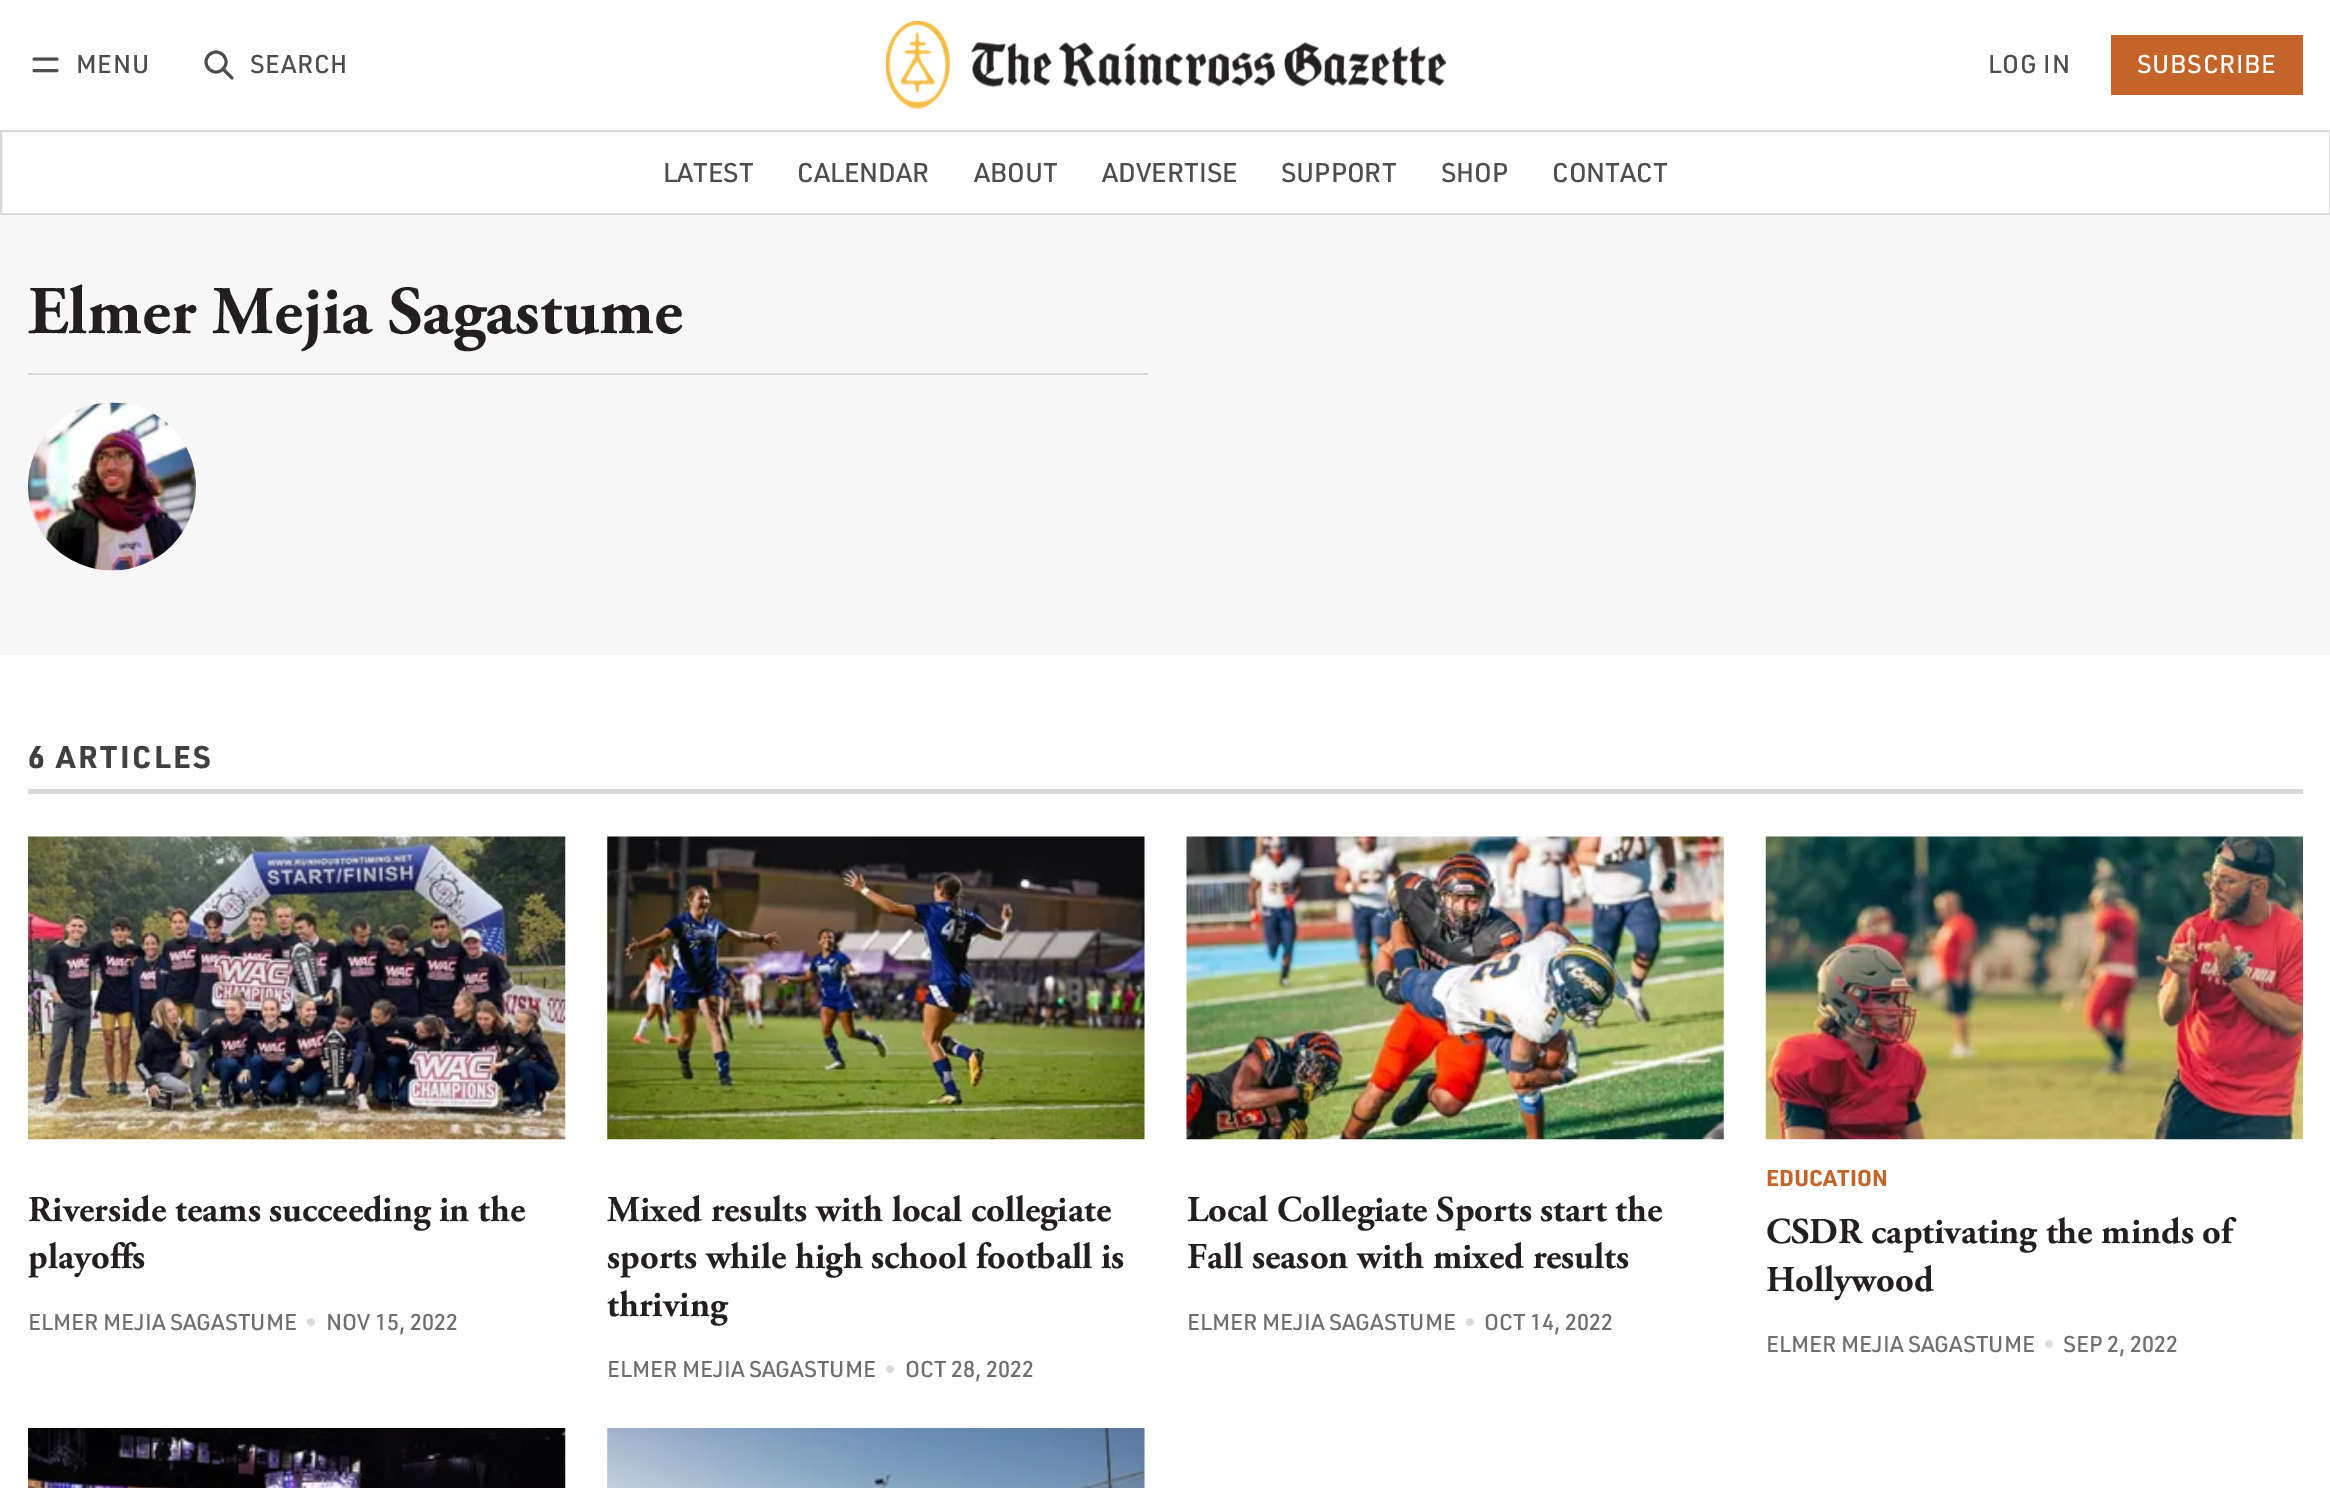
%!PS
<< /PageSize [2330 1488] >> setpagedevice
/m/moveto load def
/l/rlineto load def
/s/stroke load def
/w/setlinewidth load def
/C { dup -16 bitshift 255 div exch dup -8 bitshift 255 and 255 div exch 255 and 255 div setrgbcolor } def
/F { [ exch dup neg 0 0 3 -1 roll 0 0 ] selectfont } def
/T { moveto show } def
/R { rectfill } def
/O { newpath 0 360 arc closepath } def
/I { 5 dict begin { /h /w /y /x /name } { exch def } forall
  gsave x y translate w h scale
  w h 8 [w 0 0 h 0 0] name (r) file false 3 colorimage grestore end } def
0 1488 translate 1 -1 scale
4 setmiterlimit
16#FFFFFF C
0 0 2330 1488 R
16#4F4C4D C
2.9 w
1 setlinecap
1 setlinejoin
34 59 m 23 0 l 34 70.5 m 23 0 l s
/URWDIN-Medium 25.25 F
76 73 m .75 0 (MENU) ashow
0 setlinecap
0 setlinejoin
216 62 10 O s
1 setlinecap
1 setlinejoin
232 78 m -9 -9 l s
250 73 m .75 0 (SEARCH) ashow
(1.rgb) 886 21 560 88 I
1988 73 m .75 0 (LOG IN) ashow
16#C56428 C
2111 35 192 60 R
16#FFFFFF C
2137 73 m .75 0 (SUBSCRIBE) ashow
16#D9D9D9 C
2 w
0 setlinecap
0 setlinejoin
1 131 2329 83 rectstroke
/URWDIN-Medium 26.5 F
16#4F4C4D C
(LATEST) 663 182 T
(CALENDAR) 797 182 T
(ABOUT) 974 182 T
(ADVERTISE) 1102 182 T
(SUPPORT) 1281 182 T
(SHOP) 1441 182 T
(CONTACT) 1552 182 T
16#F7F7F7 C
0 215 2330 440 R
16#D9D9D9 C
28 373 1120 2 R
/AdobeGaramond-Bold 68.1 F
16#231F20 C
(Elmer Mejia Sagastume) 28 333 T
(2.rgb) 28 402 168 169 I
16#D9D9D9 C
28 789 2275 5 R
/URWDIN-Bold 30.75 F
16#404040 C
28 768 m 2.6 0 (6 ARTICLES) ashow
(3.rgb) 28 836 538 304 I
/AdobeGaramond-Bold 36.4 F
16#231F20 C
(Riverside teams succeeding in the) 28 1221 T
(playoffs) 28 1268 T
/URWDIN-Medium 22.4 F
16#706D6E C
(ELMER MEJIA SAGASTUME) 28 1330 T
16#DBDBDB C
(•) 305 1330 T
16#706D6E C
(NOV 15, 2022) 326 1330 T
16#F7F7F7 C
607 837 538 302 R
(4.rgb) 607 836 538 304 I
/AdobeGaramond-Bold 36.4 F
16#231F20 C
(Mixed results with local collegiate) 607 1221 T
(sports while high school football is) 607 1268 T
(thriving) 607 1316 T
/URWDIN-Medium 22.4 F
16#706D6E C
(ELMER MEJIA SAGASTUME) 607 1377 T
16#DBDBDB C
(•) 884 1377 T
16#706D6E C
(OCT 28, 2022) 905 1377 T
(5.rgb) 1186 836 538 304 I
/AdobeGaramond-Bold 36.4 F
16#231F20 C
(Local Collegiate Sports start the) 1187 1221 T
(Fall season with mixed results) 1187 1268 T
/URWDIN-Medium 22.4 F
16#706D6E C
(ELMER MEJIA SAGASTUME) 1187 1330 T
16#DBDBDB C
(•) 1464 1330 T
16#706D6E C
(OCT 14, 2022) 1484 1330 T
(6.rgb) 1765 836 538 304 I
/URWDIN-Bold 22.4 F
16#C56428 C
(EDUCATION) 1766 1186 T
/AdobeGaramond-Bold 36.4 F
16#231F20 C
(CSDR captivating the minds of) 1766 1243 T
(Hollywood) 1766 1291 T
/URWDIN-Medium 22.4 F
16#706D6E C
(ELMER MEJIA SAGASTUME) 1766 1352 T
16#DBDBDB C
(•) 2043 1352 T
16#706D6E C
(SEP 2, 2022) 2063 1352 T
(7.rgb) 28 1428 538 60 I
16#F7F7F7 C
607 1428 538 60 R
(8.rgb) 607 1428 538 60 I
showpage
